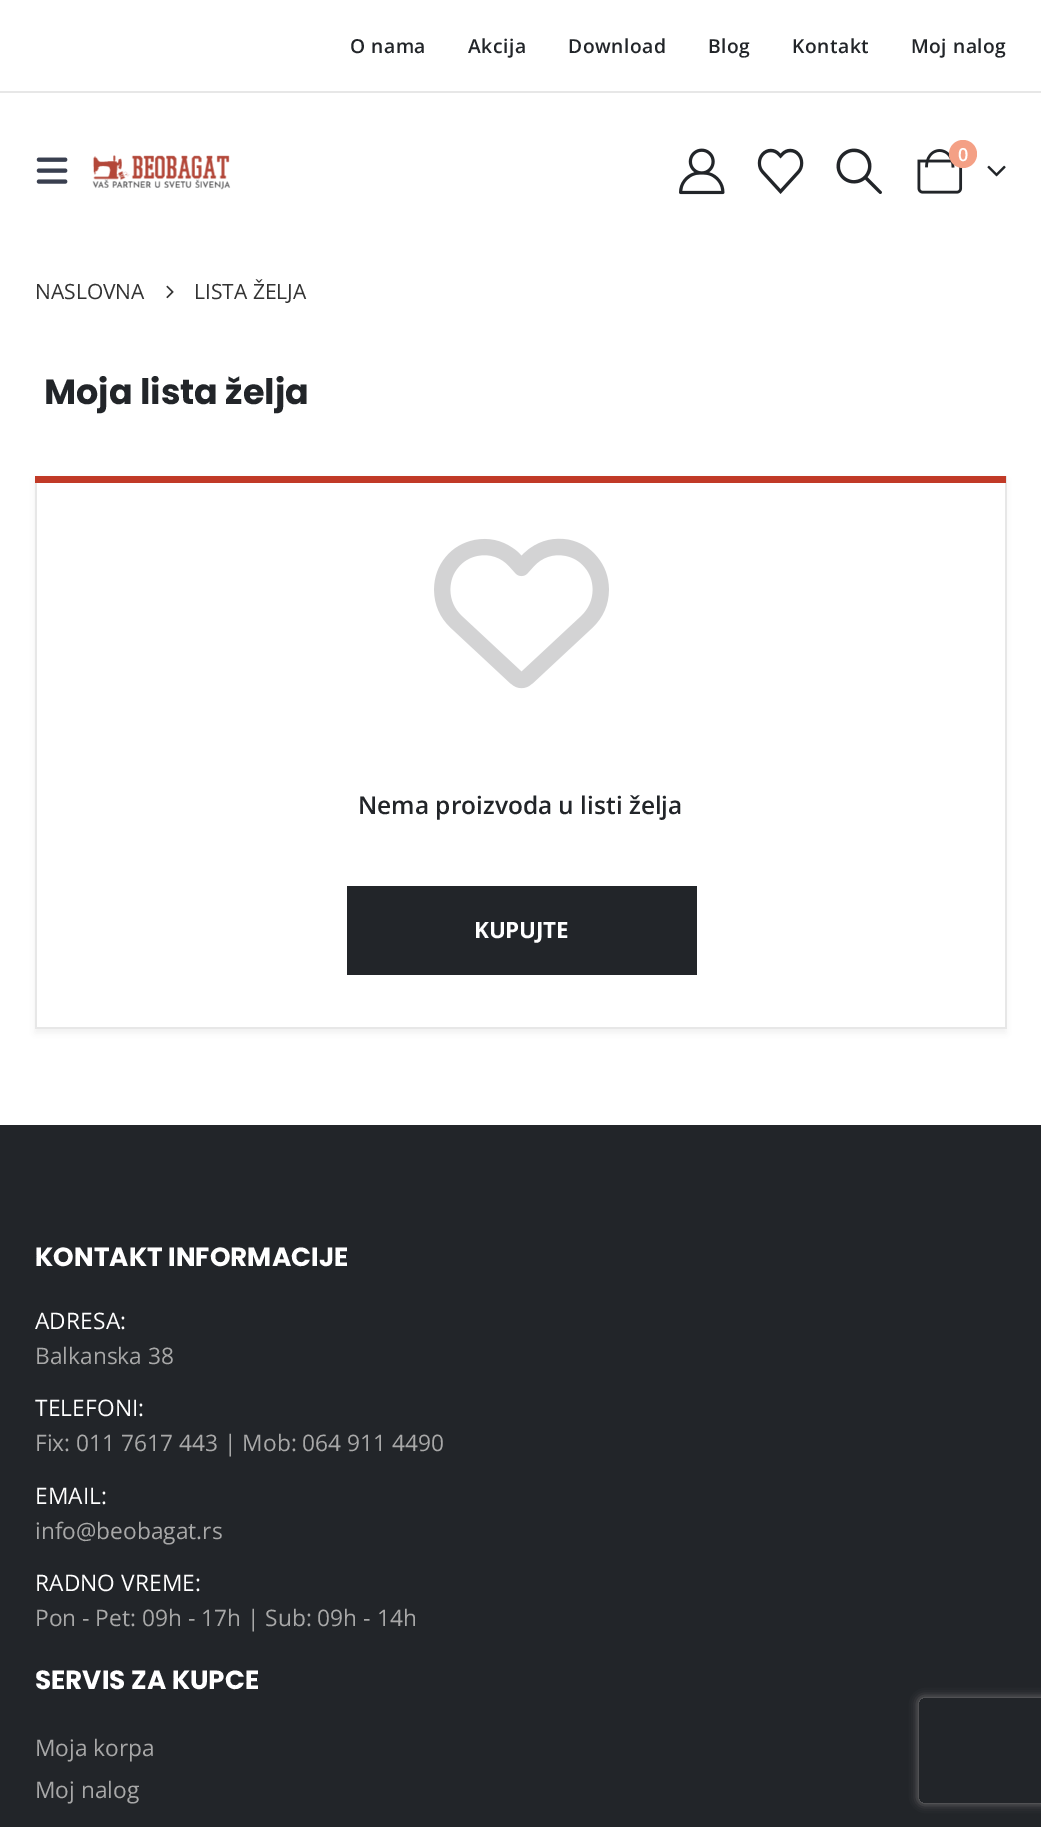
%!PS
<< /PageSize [1041 1827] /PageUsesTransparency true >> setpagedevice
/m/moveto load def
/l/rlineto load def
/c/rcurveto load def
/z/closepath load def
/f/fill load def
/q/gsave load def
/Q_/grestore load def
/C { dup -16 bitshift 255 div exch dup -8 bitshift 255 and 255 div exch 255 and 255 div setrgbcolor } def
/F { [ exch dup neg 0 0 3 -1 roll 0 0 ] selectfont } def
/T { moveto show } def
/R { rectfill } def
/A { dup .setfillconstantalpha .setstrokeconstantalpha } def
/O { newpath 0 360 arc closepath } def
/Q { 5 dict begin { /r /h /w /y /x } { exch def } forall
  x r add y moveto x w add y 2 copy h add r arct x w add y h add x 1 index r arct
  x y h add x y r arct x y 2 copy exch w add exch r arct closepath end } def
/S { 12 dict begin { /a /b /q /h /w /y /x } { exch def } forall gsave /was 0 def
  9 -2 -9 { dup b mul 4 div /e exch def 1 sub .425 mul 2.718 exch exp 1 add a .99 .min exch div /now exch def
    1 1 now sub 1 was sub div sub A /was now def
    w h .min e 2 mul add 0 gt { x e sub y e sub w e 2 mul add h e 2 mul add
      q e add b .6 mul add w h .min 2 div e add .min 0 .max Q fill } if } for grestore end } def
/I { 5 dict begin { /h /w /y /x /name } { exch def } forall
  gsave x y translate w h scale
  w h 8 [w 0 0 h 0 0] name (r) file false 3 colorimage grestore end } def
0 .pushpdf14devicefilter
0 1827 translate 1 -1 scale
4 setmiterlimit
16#FFFFFF C
0 0 1041 1827 R
16#E7E7E7 C
0 91 1041 2 R
/OpenSans-SemiBold 19.25 F
16#222529 C
350 53 m .5 0 (O nama) ashow
468 53 m .5 0 (Akcija) ashow
568 53 m .5 0 (Download) ashow
708 53 m .5 0 (Blog) ashow
792 53 m .5 0 (Kontakt) ashow
911 53 m .5 0 (Moj nalog) ashow
(1.rgb) 36 157 32 27 I
(2.rgb) 92 155 139 35 I
(3.rgb) 679 148 46 47 I
(4.rgb) 757 148 47 46 I
(5.rgb) 836 148 46 46 I
(6.rgb) 917 149 46 45 I
16#F4A085 C
963 154 14 O f
/OpenSans-SemiBold 18 F
16#FFFFFF C
(0) 958 161 T
(7.rgb) 987 165 19 12 I
/OpenSans-Regular 21 F
16#333333 C
(NASLOVNA) 35 299 T
(8.rgb) 166 285 8 14 I
(LISTA ŽELJA) 194 299 T
/Poppins-Bold 35 F
16#222529 C
(Moja lista želja) 44 404 T
q
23 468 m 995 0 l 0 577 l -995 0 l z 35 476 m 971 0 l 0 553 l -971 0 l z eoclip newpath
16#000000 C
35 480 971 553 0 3.5 .05 S
Q_
16#E7E7E7 C
1005 476 2 553 R
35 1027 971 2 R
35 476 2 553 R
16#C13A27 C
35 476 971 7 R
(9.rgb) 434 538 175 151 I
/OpenSans-SemiBold 24.5 F
16#222529 C
(Nema proizvoda u listi želja) 358 814 T
347 886 350 89 R
/OpenSans-Bold 22.5 F
16#FFFFFF C
474 938 m -.25 0 (KUPUJTE) ashow
16#222529 C
0 1125 1041 702 R
/Poppins-Bold 26.25 F
16#FFFFFF C
(KONTAKT INFORMACIJE) 35 1266 T
/OpenSans-Regular 22.75 F
35 1329 m .1 0 (ADRESA:) ashow
16#A8A8A8 C
(Balkanska 38) 35 1364 T
16#FFFFFF C
35 1416 m .1 0 (TELEFONI:) ashow
16#A8A8A8 C
(Fix: 011 7617 443 | Mob: 064 911 4490) 35 1451 T
16#FFFFFF C
35 1504 m .1 0 (EMAIL:) ashow
16#A8A8A8 C
(info@beobagat.rs) 35 1539 T
16#FFFFFF C
35 1591 m .1 0 (RADNO VREME:) ashow
16#A8A8A8 C
(Pon - Pet: 09h - 17h | Sub: 09h - 14h) 35 1626 T
/Poppins-Bold 26.25 F
16#FFFFFF C
(SERVIS ZA KUPCE) 35 1689 T
/OpenSans-Regular 22.75 F
16#A8A8A8 C
(Moja korpa) 35 1756 T
(Moj nalog) 35 1798 T
q
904 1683 m 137 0 l 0 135 l -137 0 l z 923 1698 m 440 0 l 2 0 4 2 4 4 c 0 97 l 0 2 -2 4 -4 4 c -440 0 l -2 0 -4 -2 -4 -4 c 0 -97 l 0 -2 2 -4 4 -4 c z eoclip newpath
16#808080 C
919 1698 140 105 4 4.5 1 S
Q_
.poppdf14devicefilter showpage
